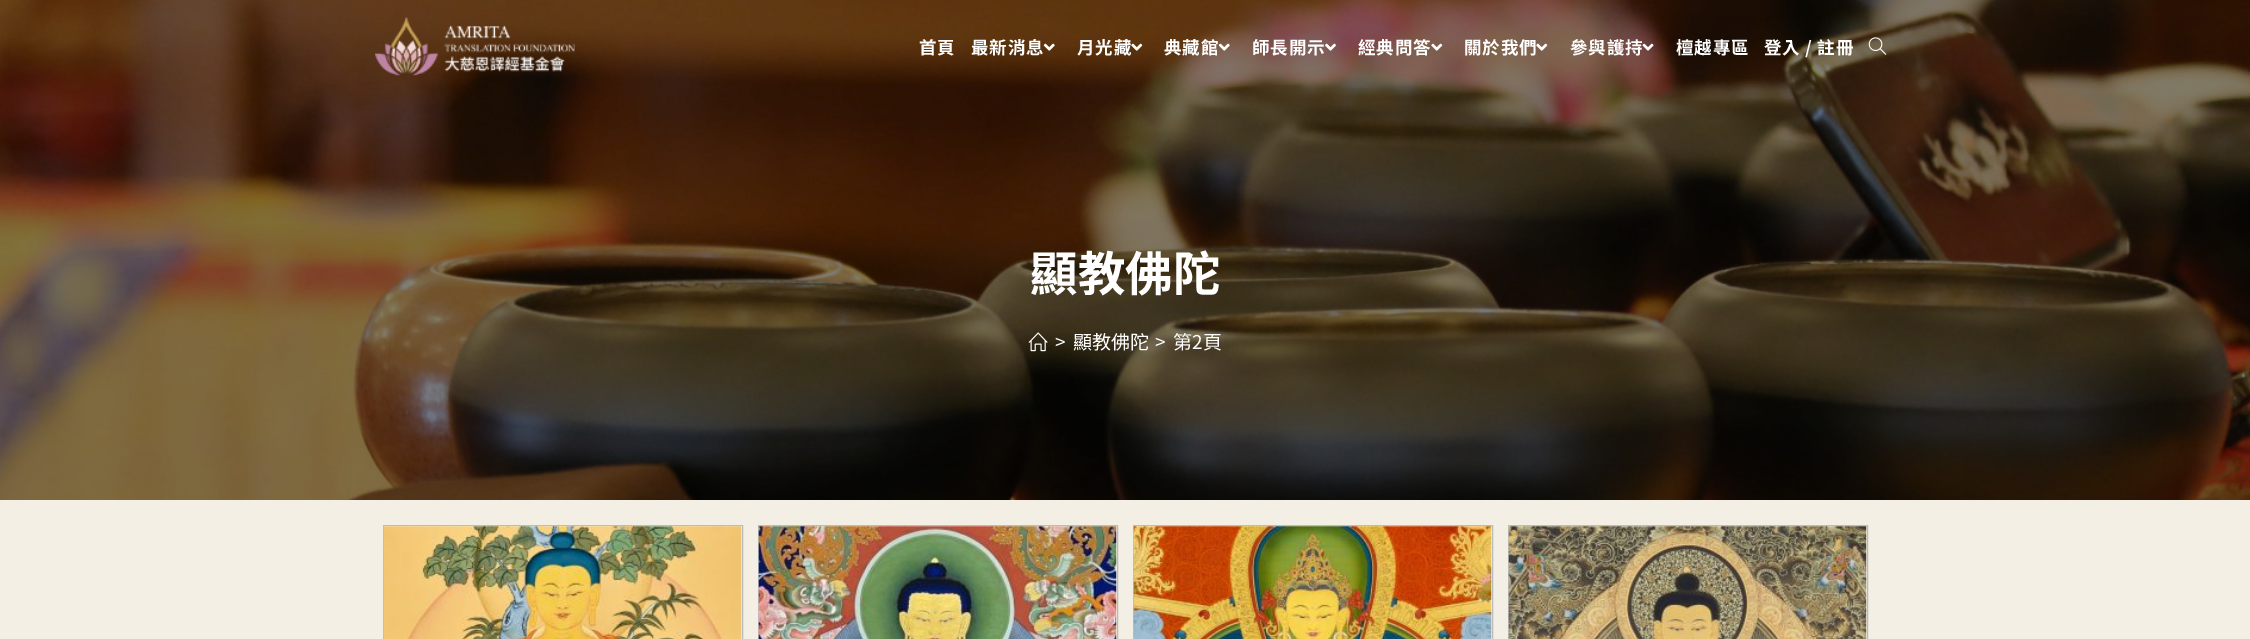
%!PS
<< /PageSize [2250 639] >> setpagedevice
/m/moveto load def
/C { dup -16 bitshift 255 div exch dup -8 bitshift 255 and 255 div exch 255 and 255 div setrgbcolor } def
/F { [ exch dup neg 0 0 3 -1 roll 0 0 ] selectfont } def
/T { moveto show } def
/R { rectfill } def
/I { 5 dict begin { /h /w /y /x /name } { exch def } forall
  gsave x y translate w h scale
  w h 8 [w 0 0 h 0 0] name (r) file false 3 colorimage grestore end } def
0 639 translate 1 -1 scale
4 setmiterlimit
16#F4EFE5 C
0 0 2250 639 R
(10.rgb) 0 0 2250 500 I
(1.rgb) 375 17 200 59 I
/NotoSansTC-Bold 17.5 F
16#FFFFFF C
919 54 m .75 0 (首頁) ashow
971 54 m .75 0 (最新消息) ashow
(2.rgb) 1043 43 12 8 I
1077 54 m .75 0 (月光藏) ashow
(3.rgb) 1131 43 12 8 I
1164 54 m .75 0 (典藏館) ashow
(4.rgb) 1218 43 12 8 I
1252 54 m .75 0 (師長開示) ashow
(5.rgb) 1325 43 11 8 I
1358 54 m .75 0 (經典問答) ashow
(6.rgb) 1431 43 12 8 I
1464 54 m .75 0 (關於我們) ashow
(7.rgb) 1536 43 12 8 I
1570 54 m .75 0 (參與護持) ashow
(8.rgb) 1642 43 12 8 I
1676 54 m .75 0 (檀越專區) ashow
1764 54 m .75 0 (登入 / 註冊) ashow
(9.rgb) 1868 37 19 18 I
/NotoSansTC-Bold 47.5 F
(顯教佛陀) 1030 291 T
(11.rgb) 1028 332 20 20 I
/NotoSansTC-Regular 19 F
(>) 1055 349 T
(顯教佛陀) 1073 349 T
(>) 1155 349 T
(第2頁) 1173 349 T
16#BBBBBB C
383.5 525.5 359 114 rectstroke
(12.rgb) 383 526 359 113 I
758.5 525.5 359 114 rectstroke
(13.rgb) 758 526 359 113 I
1133.5 525.5 359 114 rectstroke
(14.rgb) 1133 526 359 113 I
1508.5 525.5 359 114 rectstroke
(15.rgb) 1508 526 359 113 I
showpage
